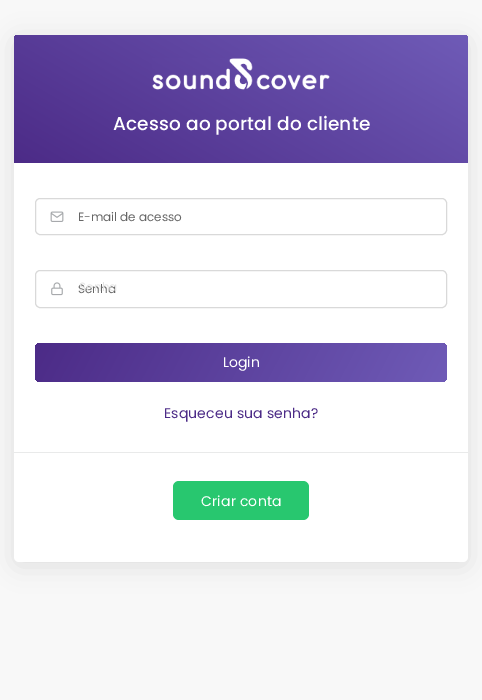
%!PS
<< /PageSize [482 700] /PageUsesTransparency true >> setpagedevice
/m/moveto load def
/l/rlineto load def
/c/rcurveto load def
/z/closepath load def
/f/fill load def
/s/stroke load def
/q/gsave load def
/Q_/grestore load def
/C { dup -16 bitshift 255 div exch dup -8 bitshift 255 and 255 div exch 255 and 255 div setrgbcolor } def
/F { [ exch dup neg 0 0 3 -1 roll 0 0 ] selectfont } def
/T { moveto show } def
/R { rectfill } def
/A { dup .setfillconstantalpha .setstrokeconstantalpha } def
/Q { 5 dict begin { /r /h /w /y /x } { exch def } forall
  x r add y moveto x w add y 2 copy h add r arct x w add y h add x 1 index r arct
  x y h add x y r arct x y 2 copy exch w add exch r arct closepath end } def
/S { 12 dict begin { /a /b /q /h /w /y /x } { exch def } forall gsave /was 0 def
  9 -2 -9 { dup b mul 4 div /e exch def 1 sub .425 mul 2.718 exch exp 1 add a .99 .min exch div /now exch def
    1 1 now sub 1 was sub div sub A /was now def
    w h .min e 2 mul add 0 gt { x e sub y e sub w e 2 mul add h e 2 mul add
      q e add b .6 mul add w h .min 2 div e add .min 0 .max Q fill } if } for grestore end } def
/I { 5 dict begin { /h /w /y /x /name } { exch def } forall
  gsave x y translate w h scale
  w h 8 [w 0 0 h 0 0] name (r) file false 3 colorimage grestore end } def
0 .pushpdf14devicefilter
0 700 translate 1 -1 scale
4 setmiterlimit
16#F8F8F8 C
0 0 482 700 R
16#000000 C
14 39 454 527 5 12.5 .1 S
16#FFFFFF C
14 35 454 527 5 Q f
q 19 35 m 444 0 l 3 0 5 2 5 5 c 0 123 l -454 0 l 0 -123 l 0 -3 2 -5 5 -5 c z clip newpath
<< /ShadingType 2 /ColorSpace /DeviceRGB /Coords [157 245 325 -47] /Extend [true true] /Function << /FunctionType 2 /Domain [0 1] /C0 [.298 .169 .529] /C1 [.435 .357 .718] /N 1 >> >> shfill Q_
(1.rgb) 152 58 178 32 I
/Poppins-Medium 18.5 F
113 130 m .15 0 (Acesso ao portal do cliente) ashow
16#D9D9D9 C
35.5 198.5 411 36 4.5 Q s
(2.rgb) 50 211 14 11 I
/Poppins-Regular 12 F
16#666666 C
(E-mail de acesso) 78 221 T
16#D9D9D9 C
35.5 270.5 411 37 4.5 Q s
(3.rgb) 51 282 12 14 I
16#666666 C
(Senha) 78 293 T
16#E4E4E4 C
79 291 m .15 0 (Senha) ashow
q 35 343 412 39 6 Q clip newpath
<< /ShadingType 2 /ColorSpace /DeviceRGB /Coords [72 273 410 452] /Extend [true true] /Function << /FunctionType 2 /Domain [0 1] /C0 [.298 .169 .529] /C1 [.435 .357 .718] /N 1 >> >> shfill Q_
/Poppins-Regular 14 F
16#FFFFFF C
(Login) 223 367 T
16#4C2B87 C
164 418 m .15 0 (Esqueceu sua senha?) ashow
16#E9EAEA C
14 452 454 1 R
16#28C76F C
173 481 136 39 6 Q f
16#FFFFFF C
201 506 m .15 0 (Criar conta) ashow
.poppdf14devicefilter showpage
